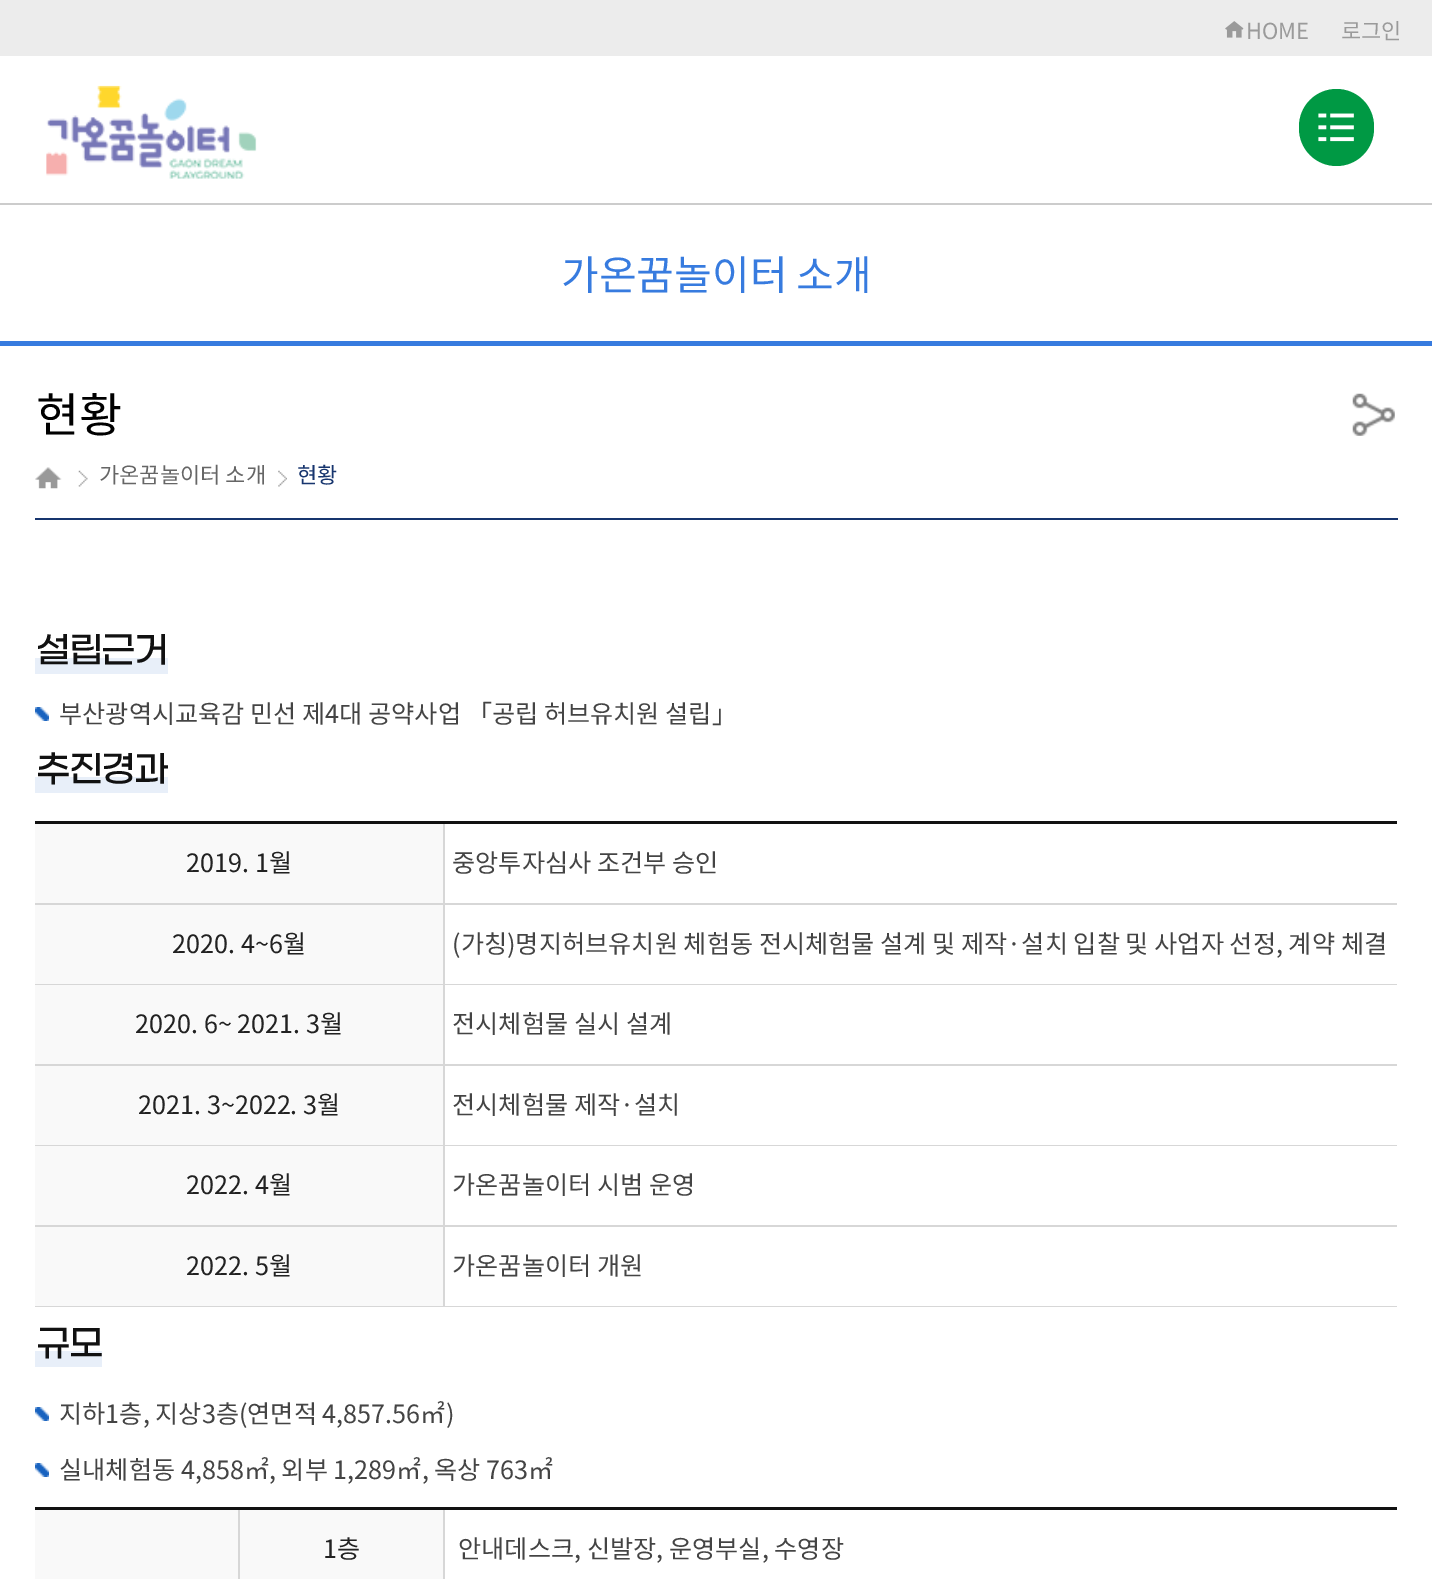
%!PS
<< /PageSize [1432 1579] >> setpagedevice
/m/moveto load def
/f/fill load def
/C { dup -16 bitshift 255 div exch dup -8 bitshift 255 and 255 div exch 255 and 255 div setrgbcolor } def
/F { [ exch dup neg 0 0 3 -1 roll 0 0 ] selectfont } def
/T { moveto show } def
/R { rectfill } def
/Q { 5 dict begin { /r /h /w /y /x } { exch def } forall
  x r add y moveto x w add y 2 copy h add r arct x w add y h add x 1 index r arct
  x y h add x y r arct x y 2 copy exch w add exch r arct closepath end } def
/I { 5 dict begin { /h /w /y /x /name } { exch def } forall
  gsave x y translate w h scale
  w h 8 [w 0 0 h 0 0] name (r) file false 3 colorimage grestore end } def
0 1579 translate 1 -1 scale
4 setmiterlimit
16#FFFFFF C
0 0 1432 1579 R
16#CCCCCC C
0 203 1432 2 R
16#ECECEC C
0 0 1432 56 R
(1.rgb) 1225 21 19 17 I
/NotoSansKR-Regular 22 F
16#9A9A9A C
(HOME) 1246 39 T
(로그인) 1341 39 T
(2.rgb) 46 85 211 94 I
16#009944 C
1299 89 75 77 37.5 Q f
(3.rgb) 1318 113 36 29 I
16#377BDF C
0 341 1432 5 R
/NotoSansKR-Regular 41 F
(가온꿈놀이터 소개) 561 290 T
16#17356E C
35 518 1363 2 R
/NotoSansKR-Regular 47 F
16#000000 C
(현황) 36 432 T
(4.rgb) 1352 393 43 43 I
(5.rgb) 35 467 27 22 I
(6.rgb) 78 470 10 17 I
/NotoSansKR-Regular 22 F
16#666666 C
(가온꿈놀이터 소개) 99 483 T
(7.rgb) 278 470 9 17 I
16#17356E C
(현황) 297 483 T
16#E8EFF9 C
35 658 133 16 R
/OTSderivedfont-Medium 36 F
16#111111 C
36 661 m -2 0 (설립근거) ashow
(8.rgb) 35 707 14 14 I
/NotoSansKR-Regular 25.2 F
16#444444 C
(부산광역시교육감 민선 제4대 공약사업 「공립 허브유치원 설립」) 59 723 T
16#E8EFF9 C
35 777 133 16 R
/OTSderivedfont-Medium 36 F
16#111111 C
36 780 m -2 0 (추진경과) ashow
35 821 1362 3 R
16#F9F9F9 C
35 824 408 79 R
16#D7D7D7 C
35 903 1362 2 R
/NotoSansKR-Regular 25.2 F
16#222222 C
(2019. 1월) 186 872 T
16#D7D7D7 C
443 824 2 81 R
16#444444 C
(중앙투자심사 조건부 승인) 452 872 T
16#F9F9F9 C
35 905 408 79 R
16#D7D7D7 C
35 984 1362 1 R
16#222222 C
(2020. 4~6월) 172 953 T
16#D7D7D7 C
443 905 2 80 R
16#444444 C
(\(가칭\)명지허브유치원 체험동 전시체험물 설계 및 제작·설치 입찰 및 사업자 선정, 계약 체결) 452 953 T
16#F9F9F9 C
35 985 408 79 R
16#D7D7D7 C
35 1064 1362 2 R
16#222222 C
(2020. 6~ 2021. 3월) 135 1033 T
16#D7D7D7 C
443 985 2 81 R
16#444444 C
(전시체험물 실시 설계) 452 1033 T
16#F9F9F9 C
35 1066 408 79 R
16#D7D7D7 C
35 1145 1362 1 R
16#222222 C
(2021. 3~2022. 3월) 138 1114 T
16#D7D7D7 C
443 1066 2 80 R
16#444444 C
(전시체험물 제작·설치) 452 1114 T
16#F9F9F9 C
35 1146 408 79 R
16#D7D7D7 C
35 1225 1362 2 R
16#222222 C
(2022. 4월) 186 1194 T
16#D7D7D7 C
443 1146 2 81 R
16#444444 C
(가온꿈놀이터 시범 운영) 452 1194 T
16#F9F9F9 C
35 1227 408 79 R
16#D7D7D7 C
35 1306 1362 1 R
16#222222 C
(2022. 5월) 186 1275 T
16#D7D7D7 C
443 1227 2 80 R
16#444444 C
(가온꿈놀이터 개원) 452 1275 T
16#E8EFF9 C
35 1351 67 16 R
/OTSderivedfont-Medium 36 F
16#111111 C
36 1354 m -2 0 (규모) ashow
(8.rgb) 35 1407 14 14 I
/NotoSansKR-Regular 25.2 F
16#444444 C
(지하1층, 지상3층\(연면적 4,857.56㎡\)) 59 1423 T
(8.rgb) 35 1463 14 14 I
(실내체험동 4,858㎡, 외부 1,289㎡, 옥상 763㎡) 59 1479 T
16#111111 C
35 1507 1362 3 R
16#F9F9F9 C
35 1510 203 69 R
240 1510 203 69 R
16#D7D7D7 C
238 1510 2 69 R
16#222222 C
(1층) 323 1558 T
16#D7D7D7 C
443 1510 2 69 R
16#444444 C
(안내데스크, 신발장, 운영부실, 수영장) 458 1558 T
showpage
